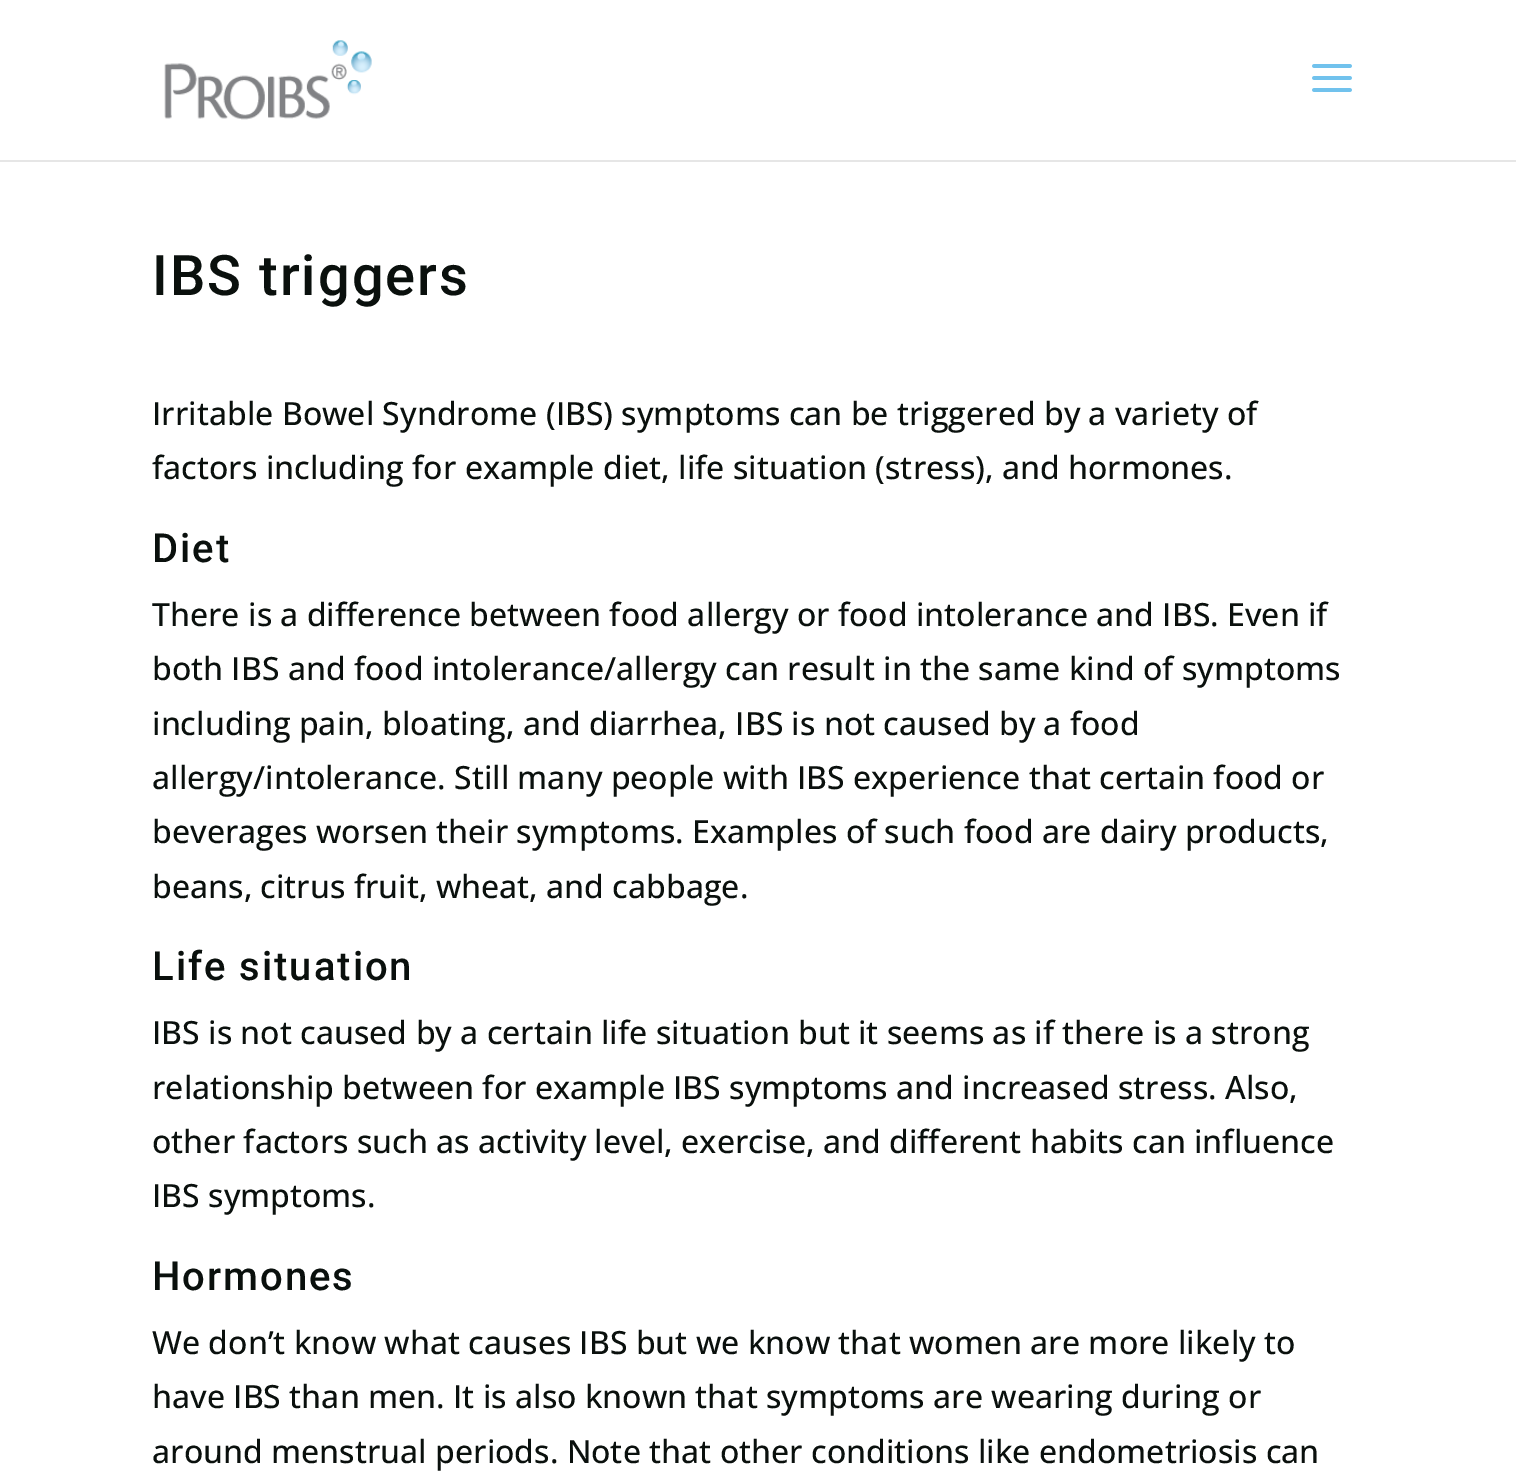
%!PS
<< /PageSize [1516 1473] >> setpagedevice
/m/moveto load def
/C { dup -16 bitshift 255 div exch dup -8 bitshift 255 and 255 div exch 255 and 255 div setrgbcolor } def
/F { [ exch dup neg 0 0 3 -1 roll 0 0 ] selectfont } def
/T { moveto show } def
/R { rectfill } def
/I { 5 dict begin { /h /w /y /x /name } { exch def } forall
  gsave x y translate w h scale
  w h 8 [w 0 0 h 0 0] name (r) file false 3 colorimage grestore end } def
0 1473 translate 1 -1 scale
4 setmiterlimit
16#FFFFFF C
0 0 1516 1473 R
16#E6E6E6 C
0 160 1516 2 R
(1.rgb) 164 40 208 80 I
(2.rgb) 1312 64 40 28 I
/Roboto-Medium 56 F
16#0A100D C
152 295 m 2 0 (IBS triggers) ashow
/OpenSans-Medium 32 F
(Irritable Bowel Syndrome \(IBS\) symptoms can be triggered by a variety of) 152 425 T
(factors including for example diet, life situation \(stress\), and hormones.) 152 479 T
/Roboto-Medium 40 F
152 562 m 2 0 (Diet) ashow
/OpenSans-Medium 32 F
(There is a difference between food allergy or food intolerance and IBS. Even if) 152 626 T
(both IBS and food intolerance/allergy can result in the same kind of symptoms) 152 680 T
(including pain, bloating, and diarrhea, IBS is not caused by a food) 152 735 T
(allergy/intolerance. Still many people with IBS experience that certain food or) 152 789 T
(beverages worsen their symptoms. Examples of such food are dairy products,) 152 843 T
(beans, citrus fruit, wheat, and cabbage.) 152 898 T
/Roboto-Medium 40 F
152 980 m 2 0 (Life situation) ashow
/OpenSans-Medium 32 F
(IBS is not caused by a certain life situation but it seems as if there is a strong) 152 1044 T
(relationship between for example IBS symptoms and increased stress. Also,) 152 1099 T
(other factors such as activity level, exercise, and different habits can influence) 152 1153 T
(IBS symptoms.) 152 1207 T
/Roboto-Medium 40 F
152 1290 m 2 0 (Hormones) ashow
/OpenSans-Medium 32 F
(We don’t know what causes IBS but we know that women are more likely to) 152 1354 T
(have IBS than men. It is also known that symptoms are wearing during or) 152 1408 T
(around menstrual periods. Note that other conditions like endometriosis can) 152 1463 T
showpage
